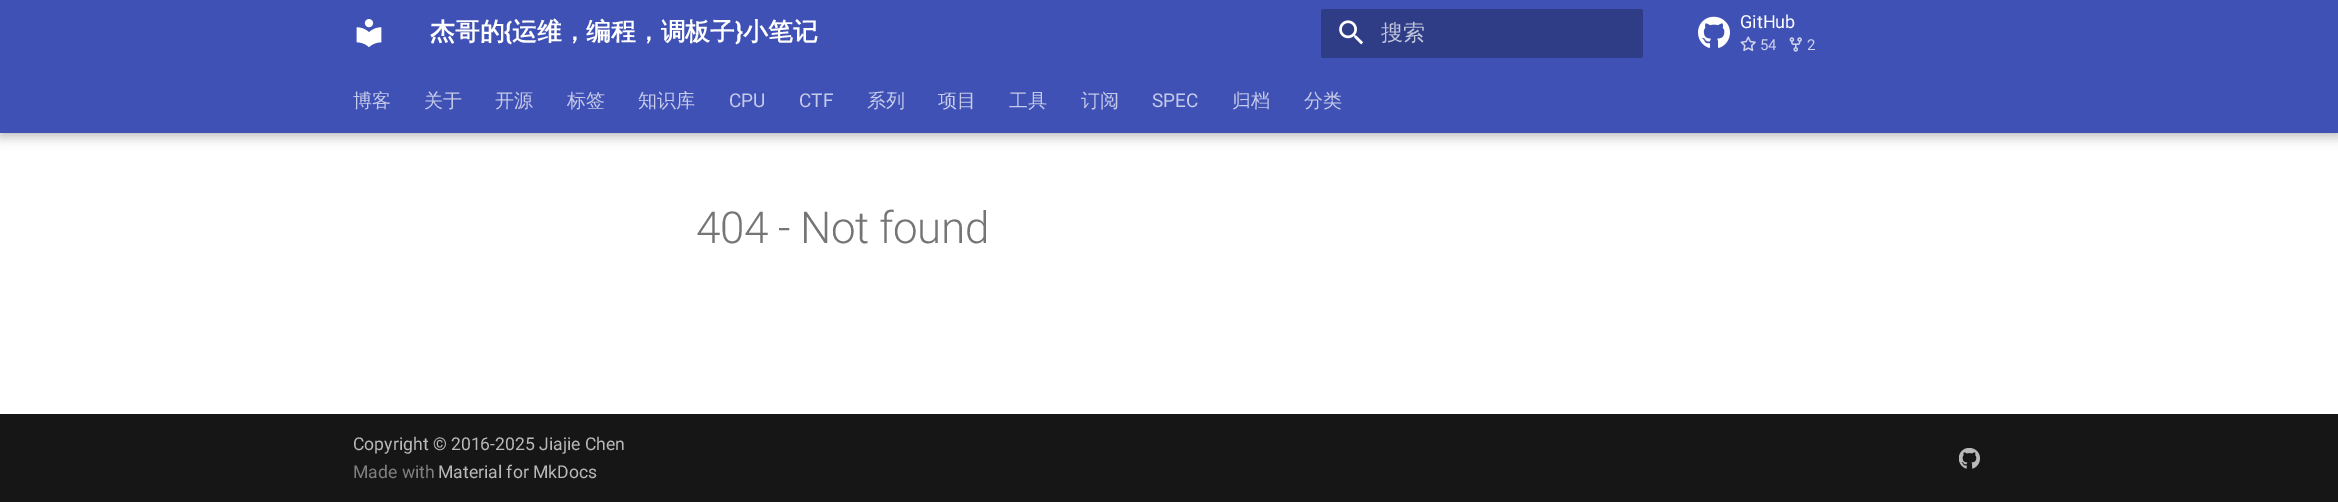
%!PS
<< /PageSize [2338 502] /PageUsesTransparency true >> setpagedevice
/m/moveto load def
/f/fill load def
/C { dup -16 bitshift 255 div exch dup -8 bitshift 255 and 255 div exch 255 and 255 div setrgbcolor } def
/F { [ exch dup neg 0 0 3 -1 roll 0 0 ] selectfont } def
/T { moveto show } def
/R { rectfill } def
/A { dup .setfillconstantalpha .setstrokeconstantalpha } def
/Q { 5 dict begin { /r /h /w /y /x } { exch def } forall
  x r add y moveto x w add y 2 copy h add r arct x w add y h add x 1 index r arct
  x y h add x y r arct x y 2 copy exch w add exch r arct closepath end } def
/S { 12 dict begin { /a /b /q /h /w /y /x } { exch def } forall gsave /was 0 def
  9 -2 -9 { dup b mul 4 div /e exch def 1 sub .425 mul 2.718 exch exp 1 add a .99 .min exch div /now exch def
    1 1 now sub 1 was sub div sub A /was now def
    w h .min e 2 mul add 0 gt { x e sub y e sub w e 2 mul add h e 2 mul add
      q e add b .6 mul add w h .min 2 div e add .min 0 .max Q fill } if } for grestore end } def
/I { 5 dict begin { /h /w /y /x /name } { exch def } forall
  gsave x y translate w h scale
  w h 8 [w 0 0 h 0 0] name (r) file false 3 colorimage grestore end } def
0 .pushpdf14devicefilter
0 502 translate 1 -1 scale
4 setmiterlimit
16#FFFFFF C
0 0 2338 502 R
16#000000 C
0 5 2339 133 0 5.5 .2 S
0 0 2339 133 0 3 .1 S
16#4051B5 C
0 0 2338 133 R
(1.rgb) 356 19 26 29 I
/WenQuanYiZenHei-Bold 24.75 F
16#FFFFFF C
(杰哥的) 430 40 T
/Roboto-Bold 24.75 F
({) 504 40 T
/WenQuanYiZenHei-Bold 24.75 F
(运维，编程，调板子) 512 40 T
/Roboto-Bold 24.75 F
(}) 735 40 T
/WenQuanYiZenHei-Bold 24.75 F
(小笔记) 743 40 T
16#2F3C86 C
1321 9 322 49 2.5 Q f
(2.rgb) 1339 20 25 25 I
/WenQuanYiZenHei-Medium 22 F
16#C1C5DB C
(搜索) 1381 40 T
(3.rgb) 1698 16 32 32 I
/Roboto-Regular 18 F
16#FFFFFF C
(GitHub) 1740 28 T
(4.rgb) 1740 36 16 16 I
/Roboto-Regular 15 F
16#CFD4ED C
(54) 1760 50 T
(5.rgb) 1789 37 13 15 I
(2) 1807 50 T
/WenQuanYiZenHei-Medium 19 F
16#C6CBE9 C
(博客) 353 107 T
(关于) 424 107 T
(开源) 495 107 T
(标签) 567 107 T
(知识库) 638 107 T
/Roboto-Regular 19 F
(CPU) 729 107 T
(CTF) 799 107 T
/WenQuanYiZenHei-Medium 19 F
(系列) 867 107 T
(项目) 938 107 T
(工具) 1009 107 T
(订阅) 1081 107 T
/Roboto-Regular 19 F
(SPEC) 1152 107 T
/WenQuanYiZenHei-Medium 19 F
(归档) 1232 107 T
(分类) 1304 107 T
/Roboto-Light 44 F
16#757575 C
696 243 m -.5 0 (404 - Not found) ashow
16#161616 C
0 414 2338 88 R
/Roboto-Regular 17.6 F
16#B9B9B9 C
(Copyright © 2016-2025 Jiajie Chen) 353 450 T
16#7F7F7F C
(Made with) 353 478 T
16#B9B9B9 C
(Material for MkDocs) 438 478 T
(6.rgb) 1959 448 21 21 I
.poppdf14devicefilter showpage
